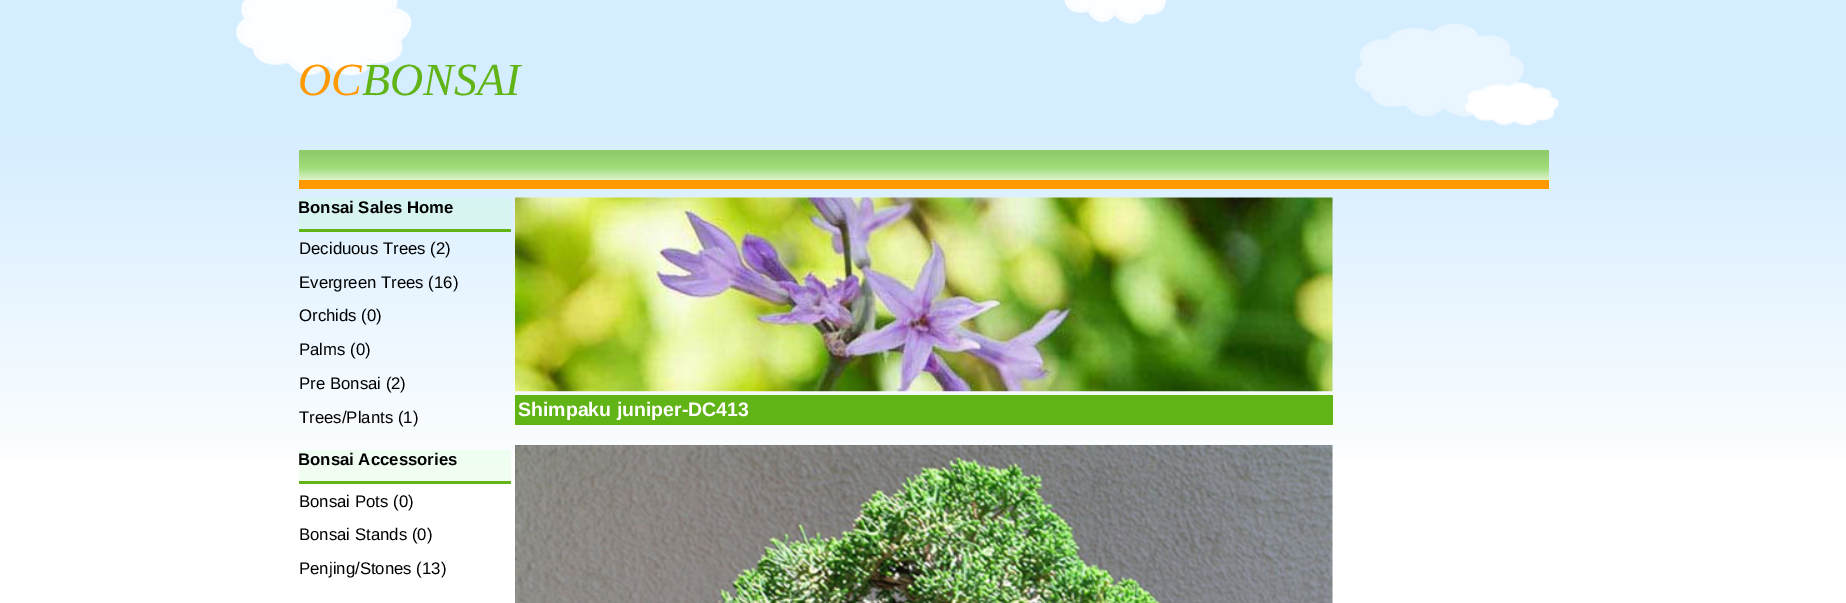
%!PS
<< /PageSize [1846 603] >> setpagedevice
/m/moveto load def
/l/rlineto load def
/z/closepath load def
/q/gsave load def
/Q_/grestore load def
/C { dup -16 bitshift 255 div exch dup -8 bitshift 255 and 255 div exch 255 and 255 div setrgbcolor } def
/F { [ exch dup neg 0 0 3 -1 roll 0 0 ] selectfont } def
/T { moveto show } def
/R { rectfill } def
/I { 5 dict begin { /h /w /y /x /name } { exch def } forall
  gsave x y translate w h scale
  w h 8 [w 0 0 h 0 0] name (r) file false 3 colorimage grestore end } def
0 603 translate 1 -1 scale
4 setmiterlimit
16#FFFFFF C
0 0 1846 603 R
q 0 0 m 1846 0 l 0 460 l -1846 0 l z clip newpath
<< /ShadingType 2 /ColorSpace /DeviceRGB /Coords [923 0 923 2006] /Extend [true true] /Function << /FunctionType 3 /Domain [0 1] /Functions [<< /FunctionType 2 /Domain [0 1] /C0 [.831 .929 1] /C1 [.831 .929 1] /N 1 >> << /FunctionType 2 /Domain [0 1] /C0 [.831 .929 1] /C1 [1 1 1] /N 1 >> << /FunctionType 2 /Domain [0 1] /C0 [1 1 1] /C1 [1 1 1] /N 1 >>] /Bounds [.06 .24] /Encode [0 1 0 1 0 1] >> >> shfill Q_
q 299 450 m 212 0 l 0 31 l -212 0 l z clip newpath
<< /ShadingType 2 /ColorSpace /DeviceRGB /Coords [923 0 923 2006] /Extend [true true] /Function << /FunctionType 3 /Domain [0 1] /Functions [<< /FunctionType 2 /Domain [0 1] /C0 [.812 .945 .945] /C1 [.812 .945 .945] /N 1 >> << /FunctionType 2 /Domain [0 1] /C0 [.812 .945 .945] /C1 [.945 1 .945] /N 1 >> << /FunctionType 2 /Domain [0 1] /C0 [.945 1 .945] /C1 [.945 1 .945] /N 1 >>] /Bounds [.06 .24] /Encode [0 1 0 1 0 1] >> >> shfill Q_
q 299 198 m 212 0 l 0 31 l -212 0 l z clip newpath
<< /ShadingType 2 /ColorSpace /DeviceRGB /Coords [923 0 923 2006] /Extend [true true] /Function << /FunctionType 3 /Domain [0 1] /Functions [<< /FunctionType 2 /Domain [0 1] /C0 [.812 .945 .945] /C1 [.812 .945 .945] /N 1 >> << /FunctionType 2 /Domain [0 1] /C0 [.812 .945 .945] /C1 [.945 1 .945] /N 1 >> << /FunctionType 2 /Domain [0 1] /C0 [.945 1 .945] /C1 [.945 1 .945] /N 1 >>] /Bounds [.06 .24] /Encode [0 1 0 1 0 1] >> >> shfill Q_
(1.rgb) 236 0 176 75 I
(2.rgb) 1064 0 103 24 I
/LiberationSerif-Italic 46 F
16#FF9900 C
(OC) 298 95 T
16#60B415 C
(BONSAI) 362 95 T
(3.rgb) 1355 23 204 103 I
q 299 150 m 1250 0 l 0 30 l -1250 0 l z clip newpath
<< /ShadingType 2 /ColorSpace /DeviceRGB /Coords [924 150 924 180] /Extend [true true] /Function << /FunctionType 3 /Domain [0 1] /Functions [<< /FunctionType 2 /Domain [0 1] /C0 [.565 .8 .412] /C1 [.565 .8 .412] /N 1 >> << /FunctionType 2 /Domain [0 1] /C0 [.565 .8 .412] /C1 [.627 .867 .475] /N 1 >> << /FunctionType 2 /Domain [0 1] /C0 [.627 .867 .475] /C1 [.863 .949 .804] /N 1 >>] /Bounds [.1 .58] /Encode [0 1 0 1 0 1] >> >> shfill Q_
16#FF9900 C
299 180 1250 9 R
16#60B415 C
299 229 212 3 R
/LiberationSans-Bold 16.75 F
16#000000 C
(Bonsai Sales Home) 298 213 T
/LiberationSans-Regular 16.75 F
(Deciduous Trees \(2\)) 299 254 T
(Evergreen Trees \(16\)) 299 288 T
(Orchids \(0\)) 299 321 T
(Palms \(0\)) 299 355 T
(Pre Bonsai \(2\)) 299 389 T
(Trees/Plants \(1\)) 299 423 T
16#60B415 C
299 481 212 3 R
/LiberationSans-Bold 16.75 F
16#000000 C
(Bonsai Accessories) 298 465 T
/LiberationSans-Regular 16.75 F
(Bonsai Pots \(0\)) 299 507 T
(Bonsai Stands \(0\)) 299 540 T
(Penjing/Stones \(13\)) 299 574 T
(4.rgb) 515 197 818 195 I
16#60B415 C
515 395 818 30 R
/LiberationSans-Bold 19.5 F
16#FFFFFF C
(Shimpaku juniper-DC413) 518 416 T
(5.rgb) 515 445 818 158 I
showpage
